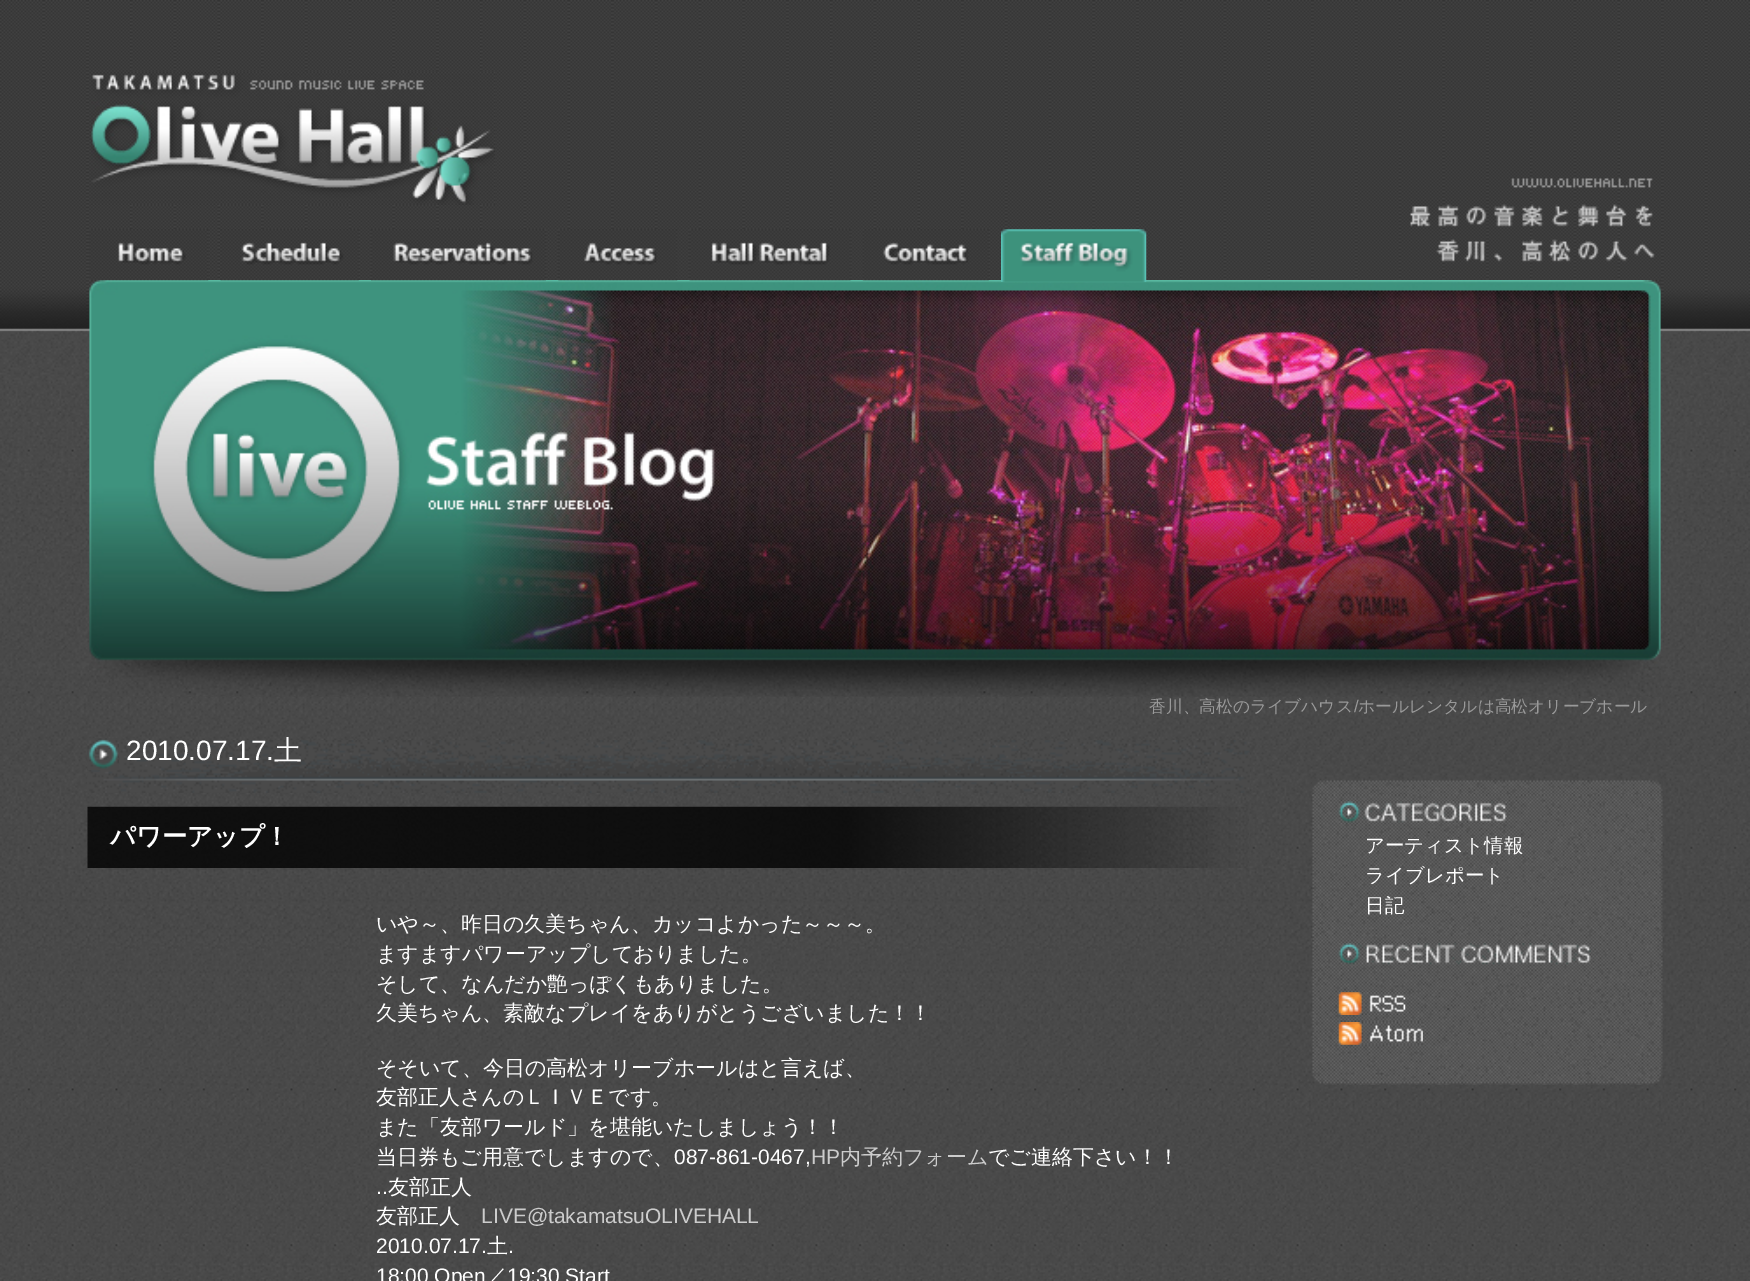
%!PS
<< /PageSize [1750 1281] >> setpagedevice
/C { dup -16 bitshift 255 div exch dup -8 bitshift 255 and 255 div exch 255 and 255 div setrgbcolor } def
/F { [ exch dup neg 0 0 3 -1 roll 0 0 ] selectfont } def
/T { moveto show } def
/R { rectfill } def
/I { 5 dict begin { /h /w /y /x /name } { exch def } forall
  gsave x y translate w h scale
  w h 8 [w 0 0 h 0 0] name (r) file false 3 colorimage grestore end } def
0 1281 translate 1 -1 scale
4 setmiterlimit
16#FFFFFF C
0 0 1750 1281 R
(1.rgb) 0 0 1750 1281 I
(2.rgb) 91 72 404 133 I
(3.rgb) 1410 178 245 84 I
(11.rgb) 89 280 1572 417 I
(4.rgb) 89 229 120 52 I
(5.rgb) 220 229 139 52 I
(6.rgb) 371 229 175 52 I
(7.rgb) 558 229 120 52 I
(8.rgb) 689 229 162 52 I
(9.rgb) 862 229 127 52 I
(10.rgb) 1001 229 146 53 I
/WenQuanYiZenHei-Medium 16.75 F
16#999999 C
(香川、高松のライブハウス) 1149 712 T
/LiberationSans-Regular 16.75 F
(/) 1354 712 T
/WenQuanYiZenHei-Medium 16.75 F
(ホールレンタルは高松オリーブホール) 1358 712 T
(12.rgb) 87 740 1163 53 I
(13.rgb) 87 738 32 32 I
/LiberationSans-Regular 28 F
16#FFFFFF C
(2010.07.17.) 126 760 T
/WenQuanYiZenHei-Medium 28 F
(土) 274 760 T
(14.rgb) 87 806 1162 62 I
/WenQuanYiZenHei-Bold 25.25 F
(パワーアップ！) 110 845 T
/WenQuanYiZenHei-Medium 21 F
(いや～、昨日の久美ちゃん、カッコよかった～～～。) 376 931 T
(ますますパワーアップしておりました。) 376 961 T
(そして、なんだか艶っぽくもありました。) 376 991 T
(久美ちゃん、素敵なプレイをありがとうございました！！) 376 1020 T
(そそいて、今日の高松オリーブホールはと言えば、) 376 1075 T
(友部正人さんのＬＩＶＥです。) 376 1104 T
(また「友部ワールド」を堪能いたしましょう！！) 376 1134 T
(当日券もご用意でしますので、) 376 1164 T
/LiberationSans-Regular 21 F
(087-861-0467,) 674 1164 T
16#CCCCCC C
(HP) 811 1164 T
/WenQuanYiZenHei-Medium 21 F
(内予約フォーム) 840 1164 T
16#FFFFFF C
(でご連絡下さい！！) 988 1164 T
/LiberationSans-Regular 21 F
(..) 376 1194 T
/WenQuanYiZenHei-Medium 21 F
(友部正人) 388 1194 T
(友部正人) 376 1223 T
/LiberationSans-Regular 21 F
16#CCCCCC C
(LIVE@takamatsuOLIVEHALL) 481 1223 T
16#FFFFFF C
(2010.07.17.) 376 1253 T
/WenQuanYiZenHei-Medium 21 F
(土) 487 1253 T
/LiberationSans-Regular 21 F
(.) 508 1253 T
(18:00 Open) 376 1283 T
/WenQuanYiZenHei-Medium 21 F
(／) 486 1283 T
/LiberationSans-Regular 21 F
(19:30 Start) 507 1283 T
(15.rgb) 1312 780 351 17 I
(16.rgb) 1312 794 351 291 I
(17.rgb) 1338 801 169 22 I
/WenQuanYiZenHei-Medium 19.5 F
(アーティスト情報) 1365 852 T
(ライブレポート) 1365 882 T
(日記) 1365 912 T
(18.rgb) 1338 943 253 22 I
(19.rgb) 1338 992 68 23 I
(20.rgb) 1338 1022 85 23 I
showpage
